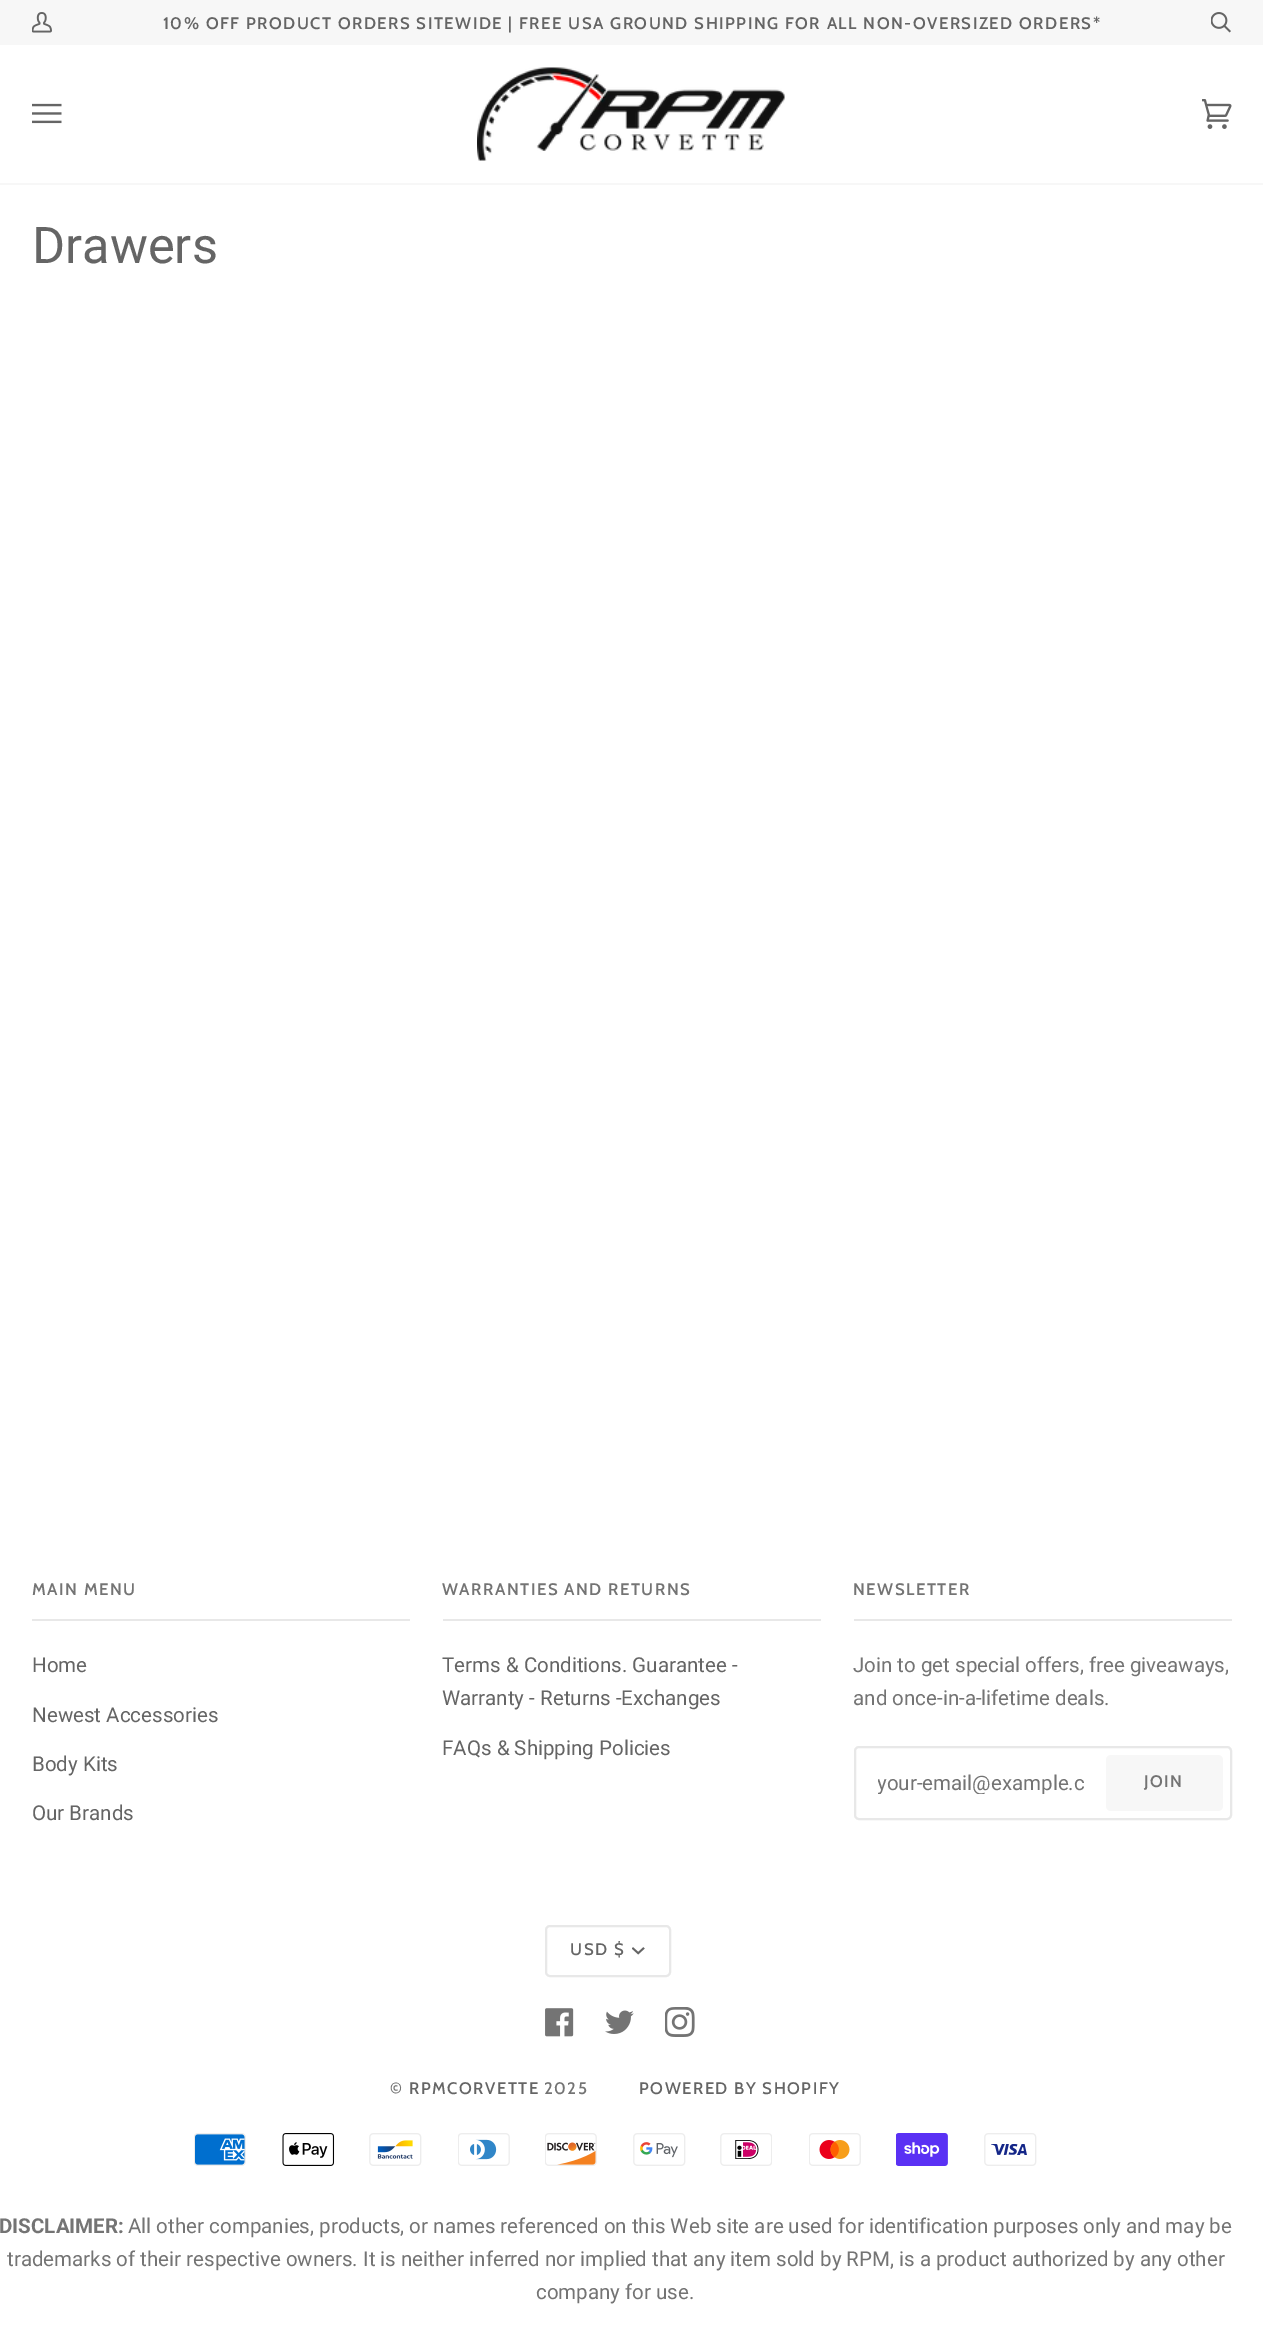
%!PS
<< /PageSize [1263 2349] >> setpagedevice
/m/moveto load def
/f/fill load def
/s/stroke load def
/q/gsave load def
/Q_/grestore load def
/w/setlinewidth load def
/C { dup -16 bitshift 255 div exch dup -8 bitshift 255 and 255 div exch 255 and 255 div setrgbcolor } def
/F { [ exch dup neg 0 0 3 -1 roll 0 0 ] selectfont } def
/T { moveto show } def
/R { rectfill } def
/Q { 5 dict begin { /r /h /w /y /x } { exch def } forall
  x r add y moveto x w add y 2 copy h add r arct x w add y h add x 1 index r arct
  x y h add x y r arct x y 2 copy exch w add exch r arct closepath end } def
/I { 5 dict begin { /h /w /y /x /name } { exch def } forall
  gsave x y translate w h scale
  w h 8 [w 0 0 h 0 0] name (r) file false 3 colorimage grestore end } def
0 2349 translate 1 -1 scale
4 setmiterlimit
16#FFFFFF C
0 0 1263 2349 R
16#F7F7F7 C
0 0 1263 45 R
(1.rgb) 32 12 20 21 I
/Cabin-SemiBold 16.7 F
16#656565 C
163 29 m 1.5 0 (10% OFF PRODUCT ORDERS SITEWIDE | FREE USA GROUND SHIPPING FOR ALL NON-OVERSIZED ORDERS*) ashow
(2.rgb) 1211 12 20 21 I
16#F7F7F7 C
0 183 1263 2 R
(3.rgb) 32 103 30 21 I
(4.rgb) 477 67 308 94 I
(5.rgb) 1202 99 30 30 I
/Roboto-Regular 50.5 F
16#656565 C
(Drawers) 32 263 T
/Cabin-SemiBold 16.7 F
16#747474 C
32 1595 m 1.5 0 (MAIN MENU) ashow
16#E8E8E8 C
32 1619 378 2 R
/Roboto-Regular 20.53 F
16#656565 C
(Home) 32 1672 T
(Newest Accessories) 32 1722 T
(Body Kits) 32 1771 T
(Our Brands) 32 1820 T
/Cabin-SemiBold 16.7 F
16#747474 C
442 1595 m 1.5 0 (WARRANTIES AND RETURNS) ashow
16#E8E8E8 C
443 1619 378 2 R
/Roboto-Regular 20.53 F
16#656565 C
(Terms & Conditions. Guarantee -) 442 1672 T
(Warranty - Returns -Exchanges) 442 1705 T
(FAQs & Shipping Policies) 442 1755 T
/Cabin-SemiBold 16.7 F
16#747474 C
853 1595 m 1.5 0 (NEWSLETTER) ashow
16#E8E8E8 C
854 1619 378 2 R
/Roboto-Regular 20.53 F
16#747474 C
(Join to get special offers, free giveaways,) 853 1672 T
(and once-in-a-lifetime deals.) 853 1705 T
16#E8E8E8 C
2 w
855 1747 376 72 4 Q s
q
878 1770 213 24 rectclip
16#747474 C
(your-email@example.c) 877 1790 T
Q_
16#F7F7F7 C
1106 1755 117 56 5 Q f
/Cabin-SemiBold 16.7 F
16#747474 C
1144 1787 m 1.5 0 (JOIN) ashow
16#E8E8E8 C
546 1926 124 50 4 Q s
/Cabin-Medium 16.7 F
16#656565 C
570 1955 m 1.5 0 (USD $) ashow
(6.rgb) 632 1947 13 8 I
(7.rgb) 545 2008 29 29 I
(8.rgb) 605 2010 29 24 I
(9.rgb) 665 2007 30 30 I
16#747474 C
390 2094 m 1.5 0 (©) ashow
16#656565 C
409 2094 m 1.5 0 (RPMCORVETTE) ashow
16#747474 C
544 2094 m 1.5 0 (2025) ashow
16#656565 C
639 2094 m 1.5 0 (POWERED BY SHOPIFY) ashow
(10.rgb) 194 2133 52 33 I
(11.rgb) 282 2133 53 33 I
(12.rgb) 369 2133 53 33 I
(13.rgb) 458 2133 52 33 I
(14.rgb) 545 2133 52 33 I
(15.rgb) 633 2133 53 33 I
(16.rgb) 720 2133 52 33 I
(17.rgb) 809 2133 52 33 I
(18.rgb) 896 2133 52 33 I
(19.rgb) 984 2133 53 33 I
/Roboto-Bold 20.53 F
16#747474 C
(DISCLAIMER:) -1 2233 T
/Roboto-Regular 20.53 F
(All other companies, products, or names referenced on this Web site are used for identification purposes only and may be) 128 2233 T
(trademarks of their respective owners. It is neither inferred nor implied that any item sold by RPM, is a product authorized by any other) 7 2266 T
(company for use.) 536 2299 T
showpage
